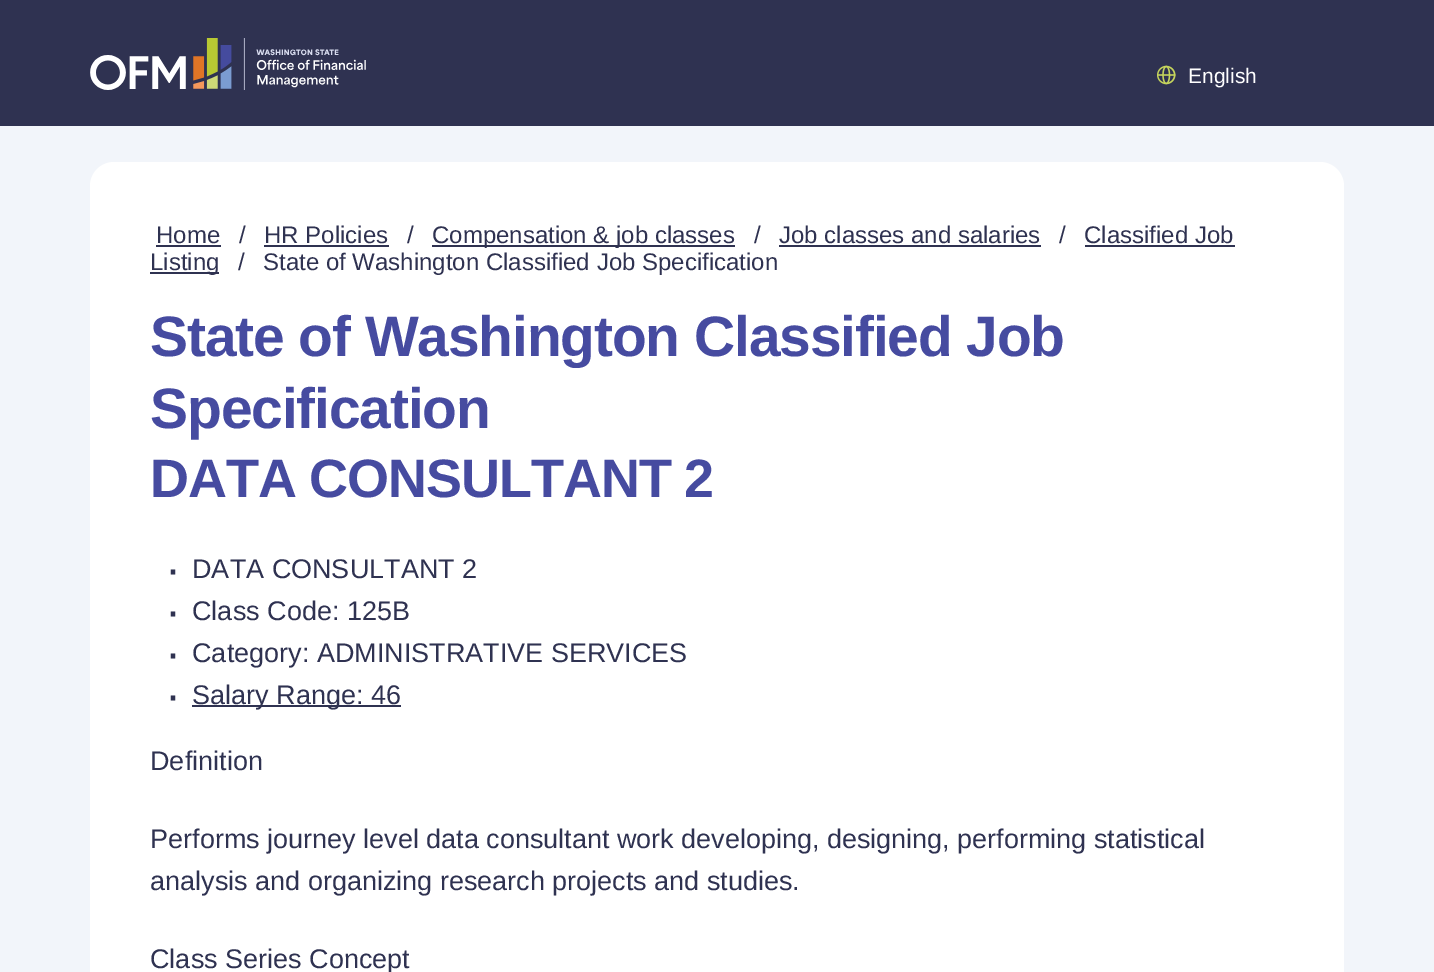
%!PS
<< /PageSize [1434 972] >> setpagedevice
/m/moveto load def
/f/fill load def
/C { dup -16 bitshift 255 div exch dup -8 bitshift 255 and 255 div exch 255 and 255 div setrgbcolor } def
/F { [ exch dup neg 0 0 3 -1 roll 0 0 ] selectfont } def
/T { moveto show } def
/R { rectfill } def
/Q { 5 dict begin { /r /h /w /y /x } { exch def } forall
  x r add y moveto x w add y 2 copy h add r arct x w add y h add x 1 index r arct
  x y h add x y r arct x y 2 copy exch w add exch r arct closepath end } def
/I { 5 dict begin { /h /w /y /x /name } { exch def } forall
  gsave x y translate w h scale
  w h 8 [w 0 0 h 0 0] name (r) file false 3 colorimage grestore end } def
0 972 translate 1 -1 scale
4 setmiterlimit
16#F2F5FA C
0 0 1434 972 R
16#2F3251 C
0 0 1434 126 R
(1.rgb) 90 38 276 52 I
(2.rgb) 1157 65 19 20 I
/LiberationSans-Regular 21 F
16#FFFFFF C
(English) 1188 83 T
90 162 1254 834 24 Q f
/LiberationSans-Regular 24 F
16#2F3251 C
(Home) 156 243 T
156 245 65 2 R
(/) 239 243 T
(HR Policies) 264 243 T
264 245 125 2 R
(/) 407 243 T
432 245 303 2 R
(Compensation & job classes) 432 243 T
(/) 754 243 T
(Job classes and salaries) 779 243 T
779 245 262 2 R
(/) 1059 243 T
(Classified Job) 1084 243 T
1085 245 150 2 R
150 272 69 2 R
(Listing) 150 270 T
(/) 238 270 T
(State of Washington Classified Job Specification) 263 270 T
/LiberationSans-Bold 57 F
16#464BA0 C
150 356 m -1.15 0 (State of Washington Classified Job) ashow
150 428 m -1.15 0 (Specification) ashow
/LiberationSans-Bold 54 F
150 497 m -1.1 0 (DATA CONSULTANT 2) ashow
/LiberationSans-Regular 48 F
16#2F3251 C
(·) 165 585 T
/LiberationSans-Regular 27 F
(DATA CONSULTANT 2) 192 578 T
/LiberationSans-Regular 48 F
(·) 165 627 T
/LiberationSans-Regular 27 F
(Class Code: 125B) 192 620 T
/LiberationSans-Regular 48 F
(·) 165 669 T
/LiberationSans-Regular 27 F
(Category: ADMINISTRATIVE SERVICES) 192 662 T
/LiberationSans-Regular 48 F
(·) 165 711 T
192 705 209 2 R
/LiberationSans-Regular 27 F
(Salary Range: 46) 192 704 T
(Definition) 150 770 T
(Performs journey level data consultant work developing, designing, performing statistical) 150 848 T
(analysis and organizing research projects and studies.) 150 890 T
(Class Series Concept) 150 968 T
showpage
